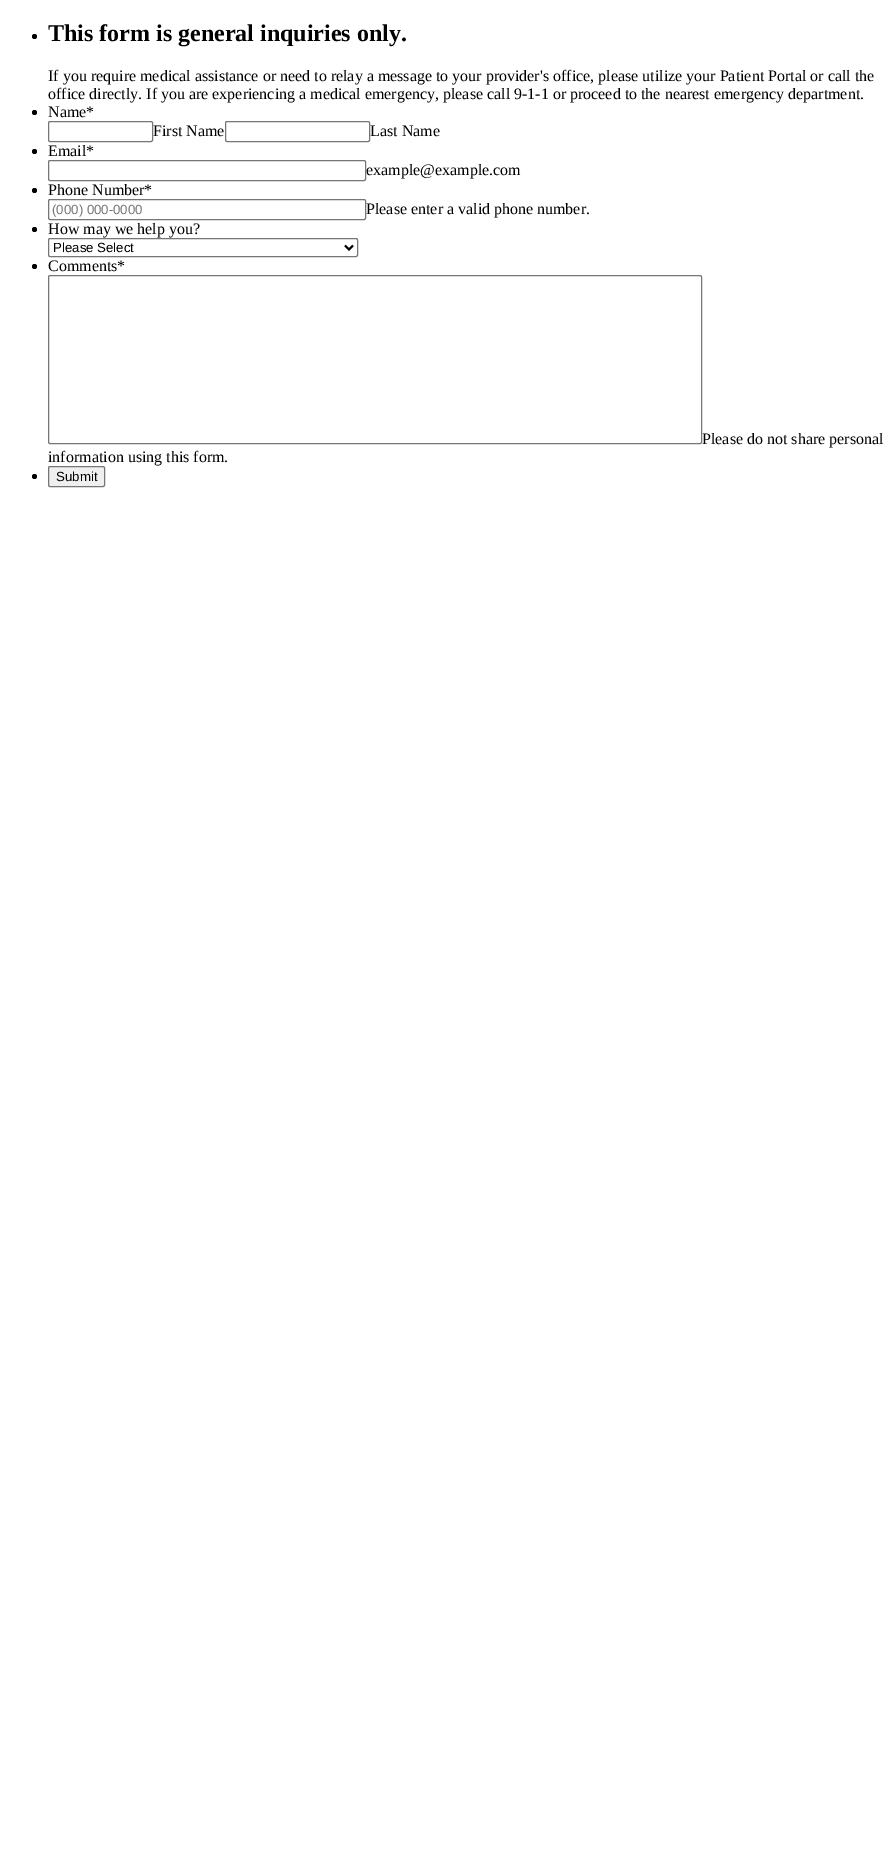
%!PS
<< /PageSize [894 1863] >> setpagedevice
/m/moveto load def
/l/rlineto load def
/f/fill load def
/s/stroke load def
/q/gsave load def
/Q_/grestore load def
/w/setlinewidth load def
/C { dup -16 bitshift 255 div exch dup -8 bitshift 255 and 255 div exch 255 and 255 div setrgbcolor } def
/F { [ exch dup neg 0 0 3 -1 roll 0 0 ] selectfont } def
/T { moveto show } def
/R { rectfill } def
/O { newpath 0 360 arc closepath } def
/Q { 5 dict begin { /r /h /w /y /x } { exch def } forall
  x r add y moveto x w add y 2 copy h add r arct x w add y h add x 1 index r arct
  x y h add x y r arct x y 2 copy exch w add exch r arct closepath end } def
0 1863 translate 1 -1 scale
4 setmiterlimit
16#FFFFFF C
0 0 894 1863 R
16#000000 C
34.5 36.5 2.5 O f
/LiberationSerif-Bold 24 F
(This form is general inquiries only.) 48 41 T
/LiberationSerif-Regular 16 F
(If you require medical assistance or need to relay a message to your provider's office, please utilize your Patient Portal or call the) 48 81 T
(office directly. If you are experiencing a medical emergency, please call 9-1-1 or proceed to the nearest emergency department.) 48 99 T
34.5 112.5 2.5 O f
(Name*) 48 117 T
16#767676 C
48.5 121.5 104 20 1.5 Q s
16#000000 C
(First Name) 153 136 T
16#767676 C
225.5 121.5 144 20 1.5 Q s
16#000000 C
(Last Name) 370 136 T
34.5 151.5 2.5 O f
(Email*) 48 156 T
16#767676 C
48.5 160.5 317 20 1.5 Q s
16#000000 C
(example@example.com) 366 175 T
34.5 190.5 2.5 O f
(Phone Number*) 48 195 T
16#767676 C
48.5 199.5 317 20 1.5 Q s
/LiberationSans-Regular 13.25 F
16#757575 C
(\(000\) 000-0000) 52 214 T
/LiberationSerif-Regular 16 F
16#000000 C
(Please enter a valid phone number.) 366 214 T
34.5 229.5 2.5 O f
(How may we help you?) 48 234 T
16#767676 C
48.5 238.5 309 18 1.5 Q s
16#000000 C
2 w
345 245.5 m 4 4 l 4 -4 l s
/LiberationSans-Regular 13.25 F
(Please Select) 53 252 T
34.5 266.5 2.5 O f
/LiberationSerif-Regular 16 F
(Comments*) 48 271 T
16#767676 C
1 w
48.5 275.5 653 168 1.5 Q s
16#000000 C
(Please do not share personal) 702 444 T
(information using this form.) 48 462 T
34.5 476.5 2.5 O f
16#EFEFEF C
48.5 466.5 56 20 1.5 Q q f Q_
16#767676 C
s
/LiberationSans-Regular 13.25 F
16#000000 C
(Submit) 56 481 T
showpage
